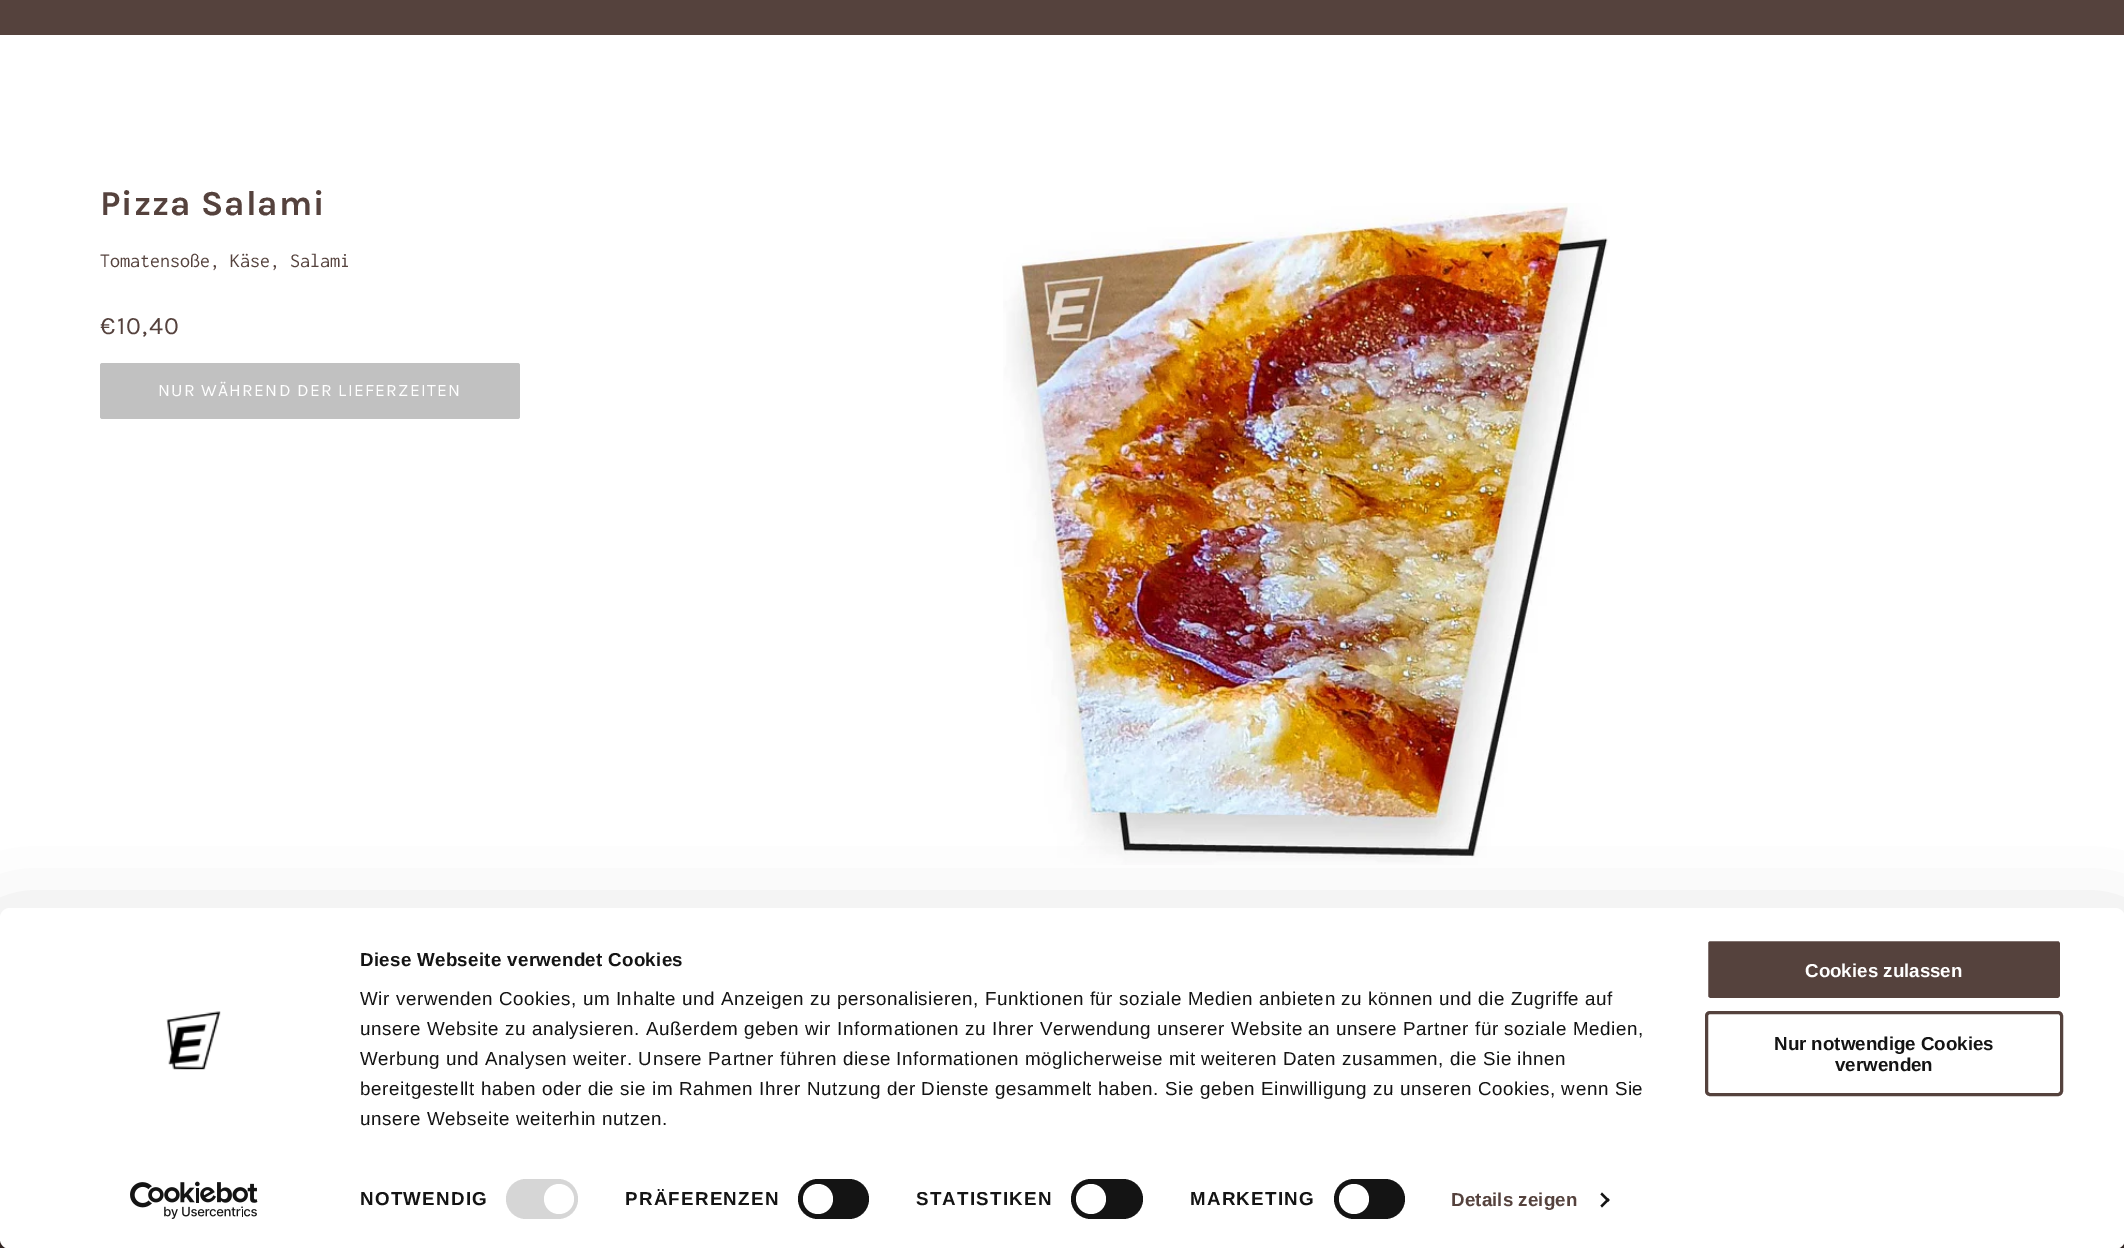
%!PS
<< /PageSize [2124 1248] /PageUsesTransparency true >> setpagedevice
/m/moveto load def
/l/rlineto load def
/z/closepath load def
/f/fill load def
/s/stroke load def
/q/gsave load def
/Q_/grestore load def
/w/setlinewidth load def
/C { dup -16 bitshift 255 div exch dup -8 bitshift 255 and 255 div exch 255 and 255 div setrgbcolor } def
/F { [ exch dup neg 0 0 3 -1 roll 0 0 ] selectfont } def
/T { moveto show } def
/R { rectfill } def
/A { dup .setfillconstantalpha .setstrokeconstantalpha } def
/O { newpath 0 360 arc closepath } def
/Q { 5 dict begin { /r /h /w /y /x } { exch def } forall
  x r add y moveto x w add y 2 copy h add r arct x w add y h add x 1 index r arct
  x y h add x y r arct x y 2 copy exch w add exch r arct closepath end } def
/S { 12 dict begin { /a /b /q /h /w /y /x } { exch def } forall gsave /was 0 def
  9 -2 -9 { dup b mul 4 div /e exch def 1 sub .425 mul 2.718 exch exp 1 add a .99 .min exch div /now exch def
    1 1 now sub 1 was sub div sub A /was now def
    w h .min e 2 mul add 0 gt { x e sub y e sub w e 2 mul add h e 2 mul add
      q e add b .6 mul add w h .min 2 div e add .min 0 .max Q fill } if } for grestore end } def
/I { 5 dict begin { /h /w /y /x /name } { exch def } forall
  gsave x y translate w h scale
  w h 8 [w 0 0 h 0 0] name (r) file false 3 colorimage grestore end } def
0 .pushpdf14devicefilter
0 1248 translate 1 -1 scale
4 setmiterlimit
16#FFFFFF C
0 0 2124 1248 R
16#55423D C
0 0 2124 35 R
/Karla-Bold 35 F
100 215 m .9 0 (Pizza Salami) ashow
/Inconsolata-Regular 20 F
(Tomatensoße, Käse, Salami) 100 267 T
/Karla-Regular 25 F
100 334 m 1.25 0 (€10,40) ashow
16#C1C1C1 C
100 363 420 56 2.5 Q f
/Karla-Regular 17.5 F
16#FFFFFF C
158 396 m 1.25 0 (NUR WÄHREND DER LIEFERZEITEN) ashow
(1.rgb) 1003 203 607 662 I
16#3A2B27 C
0 1239 2124 9 R
16#000000 C
0 945 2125 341 10 44 .3 S
16#FFFFFF C
0 908 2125 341 10 Q f
(2.rgb) 166 1011 55 59 I
(3.rgb) 130 1181 128 38 I
/LiberationSans-Bold 18.75 F
16#141414 C
360 966 m .3 0 (Diese Webseite verwendet Cookies) ashow
/LiberationSans-Regular 18.75 F
360 1005 m .62 0 (Wir verwenden Cookies, um Inhalte und Anzeigen zu personalisieren, Funktionen für soziale Medien anbieten zu können und die Zugriffe auf) ashow
360 1035 m .62 0 (unsere Website zu analysieren. Außerdem geben wir Informationen zu Ihrer Verwendung unserer Website an unsere Partner für soziale Medien,) ashow
360 1065 m .62 0 (Werbung und Analysen weiter. Unsere Partner führen diese Informationen möglicherweise mit weiteren Daten zusammen, die Sie ihnen) ashow
360 1095 m .62 0 (bereitgestellt haben oder die sie im Rahmen Ihrer Nutzung der Dienste gesammelt haben. Sie geben Einwilligung zu unseren Cookies, wenn Sie) ashow
360 1125 m .62 0 (unsere Webseite weiterhin nutzen.) ashow
/LiberationSans-Bold 18.75 F
360 1205 m 1.25 0 (NOTWENDIG) ashow
16#D6D6D6 C
506 1179 72 40 20 Q f
16#FFFFFF C
559 1199 15 O f
16#141414 C
625 1205 m 1.25 0 (PRÄFERENZEN) ashow
798 1179 71 40 20 Q f
16#FFFFFF C
818 1199 15 O f
16#141414 C
916 1205 m 1.25 0 (STATISTIKEN) ashow
1071 1179 72 40 20 Q f
16#FFFFFF C
1091 1199 15 O f
16#141414 C
1190 1205 m 1.25 0 (MARKETING) ashow
1334 1179 71 40 20 Q f
16#FFFFFF C
1354 1199 15 O f
16#55423D C
1451 1206 m .1 0 (Details zeigen) ashow
16#141414 C
1602 1192.5 m 7.5 7.5 l -1.5 2 l -7.5 -7.5 l z f
1608 1198 m 1.5 2 l -7.5 7.5 l -1.5 -2 l z f
16#55423D C
1706.5 939.5 355 60 3.5 Q q f Q_
16#FFFFFF C
3 w
s
(Cookies zulassen) 1805 977 T
16#55423D C
1706.5 1012.5 355 82 3.5 Q s
16#141414 C
(Nur notwendige Cookies) 1774 1050 T
(verwenden) 1835 1071 T
.poppdf14devicefilter showpage
